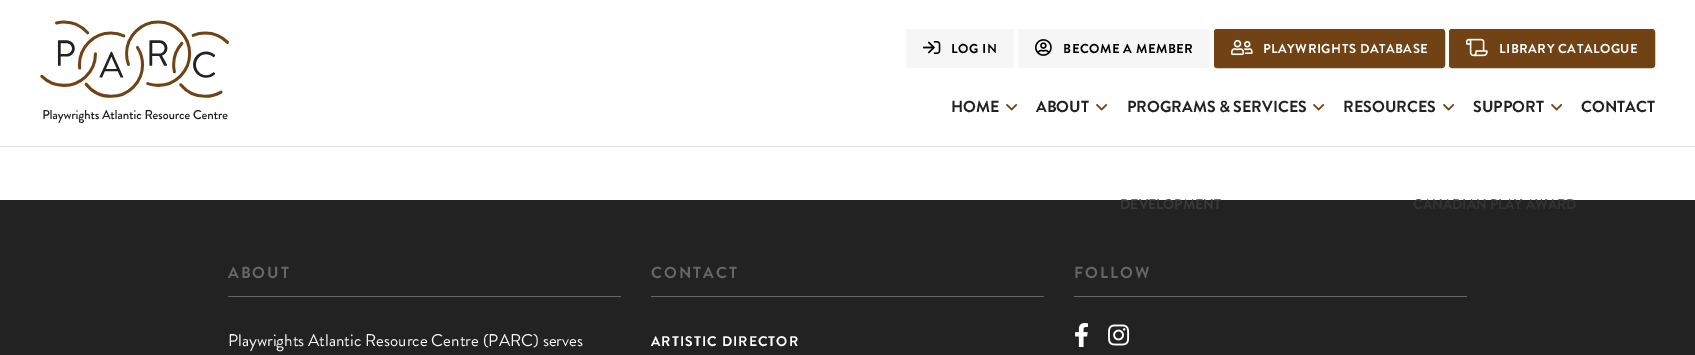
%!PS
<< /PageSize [1695 355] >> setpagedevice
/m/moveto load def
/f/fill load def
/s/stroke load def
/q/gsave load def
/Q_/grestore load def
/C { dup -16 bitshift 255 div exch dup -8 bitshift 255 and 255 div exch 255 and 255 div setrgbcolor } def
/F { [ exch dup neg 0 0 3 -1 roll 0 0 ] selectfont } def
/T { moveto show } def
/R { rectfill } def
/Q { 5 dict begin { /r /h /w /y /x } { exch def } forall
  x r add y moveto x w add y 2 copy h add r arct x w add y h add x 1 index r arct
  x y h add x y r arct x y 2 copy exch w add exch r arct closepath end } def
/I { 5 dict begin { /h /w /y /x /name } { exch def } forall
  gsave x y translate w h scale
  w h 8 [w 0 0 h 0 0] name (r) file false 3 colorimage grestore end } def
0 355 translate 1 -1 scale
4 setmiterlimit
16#FFFFFF C
0 0 1695 355 R
(1.rgb) 40 20 190 103 I
16#F6F6F6 C
906 29 108 39 3 Q f
(2.rgb) 923 41 18 13 I
/BrandonGrotesque-Bold 13 F
16#000000 C
951 53 m .5 0 (LOG IN) ashow
16#F6F6F6 C
1018 29 192 39 3 Q f
(3.rgb) 1035 39 17 17 I
16#000000 C
1063 53 m .5 0 (BECOME A MEMBER) ashow
16#704214 C
1214.5 29.5 230 38 2.5 Q q f Q_
s
(4.rgb) 1231 39 22 17 I
16#FFFFFF C
1263 53 m .5 0 (PLAYWRIGHTS DATABASE) ashow
16#704214 C
1449.5 29.5 205 38 2.5 Q q f Q_
s
(5.rgb) 1466 38 22 19 I
16#FFFFFF C
1499 53 m .5 0 (LIBRARY CATALOGUE) ashow
/BrandonGrotesque-Bold 16 F
16#222222 C
(HOME) 951 112 T
(6.rgb) 1006 103 12 8 I
(ABOUT) 1036 112 T
(6.rgb) 1096 103 12 8 I
(PROGRAMS & SERVICES) 1127 112 T
(6.rgb) 1313 103 12 8 I
0 200 1695 155 R
/BrandonGrotesque-Bold 14 F
16#3A3A3A C
(DEVELOPMENT) 1120 209 T
/BrandonGrotesque-Bold 16 F
16#222222 C
(RESOURCES) 1343 112 T
(6.rgb) 1443 103 12 8 I
(SUPPORT) 1473 112 T
(6.rgb) 1551 103 12 8 I
/BrandonGrotesque-Bold 14 F
16#333333 C
(CANADIAN PLAY AWARD) 1413 209 T
/BrandonGrotesque-Bold 16 F
16#222222 C
(CONTACT) 1581 112 T
16#DEE2E6 C
0 146 1695 1 R
16#666666 C
228 296 393 1 R
228 278 m 2 0 (ABOUT) ashow
/BrandonGrotesque-Regular 17 F
16#F6F6F6 C
(Playwrights Atlantic Resource Centre \(PARC\) serves) 228 346 T
16#666666 C
651 296 393 1 R
/BrandonGrotesque-Bold 16 F
651 278 m 2 0 (CONTACT) ashow
/BrandonGrotesque-Bold 14 F
16#FFFFFF C
651 346 m 1 0 (ARTISTIC DIRECTOR) ashow
16#666666 C
1074 296 393 1 R
/BrandonGrotesque-Bold 16 F
1074 278 m 2 0 (FOLLOW) ashow
(7.rgb) 1075 323 13 24 I
(8.rgb) 1108 324 22 22 I
showpage
